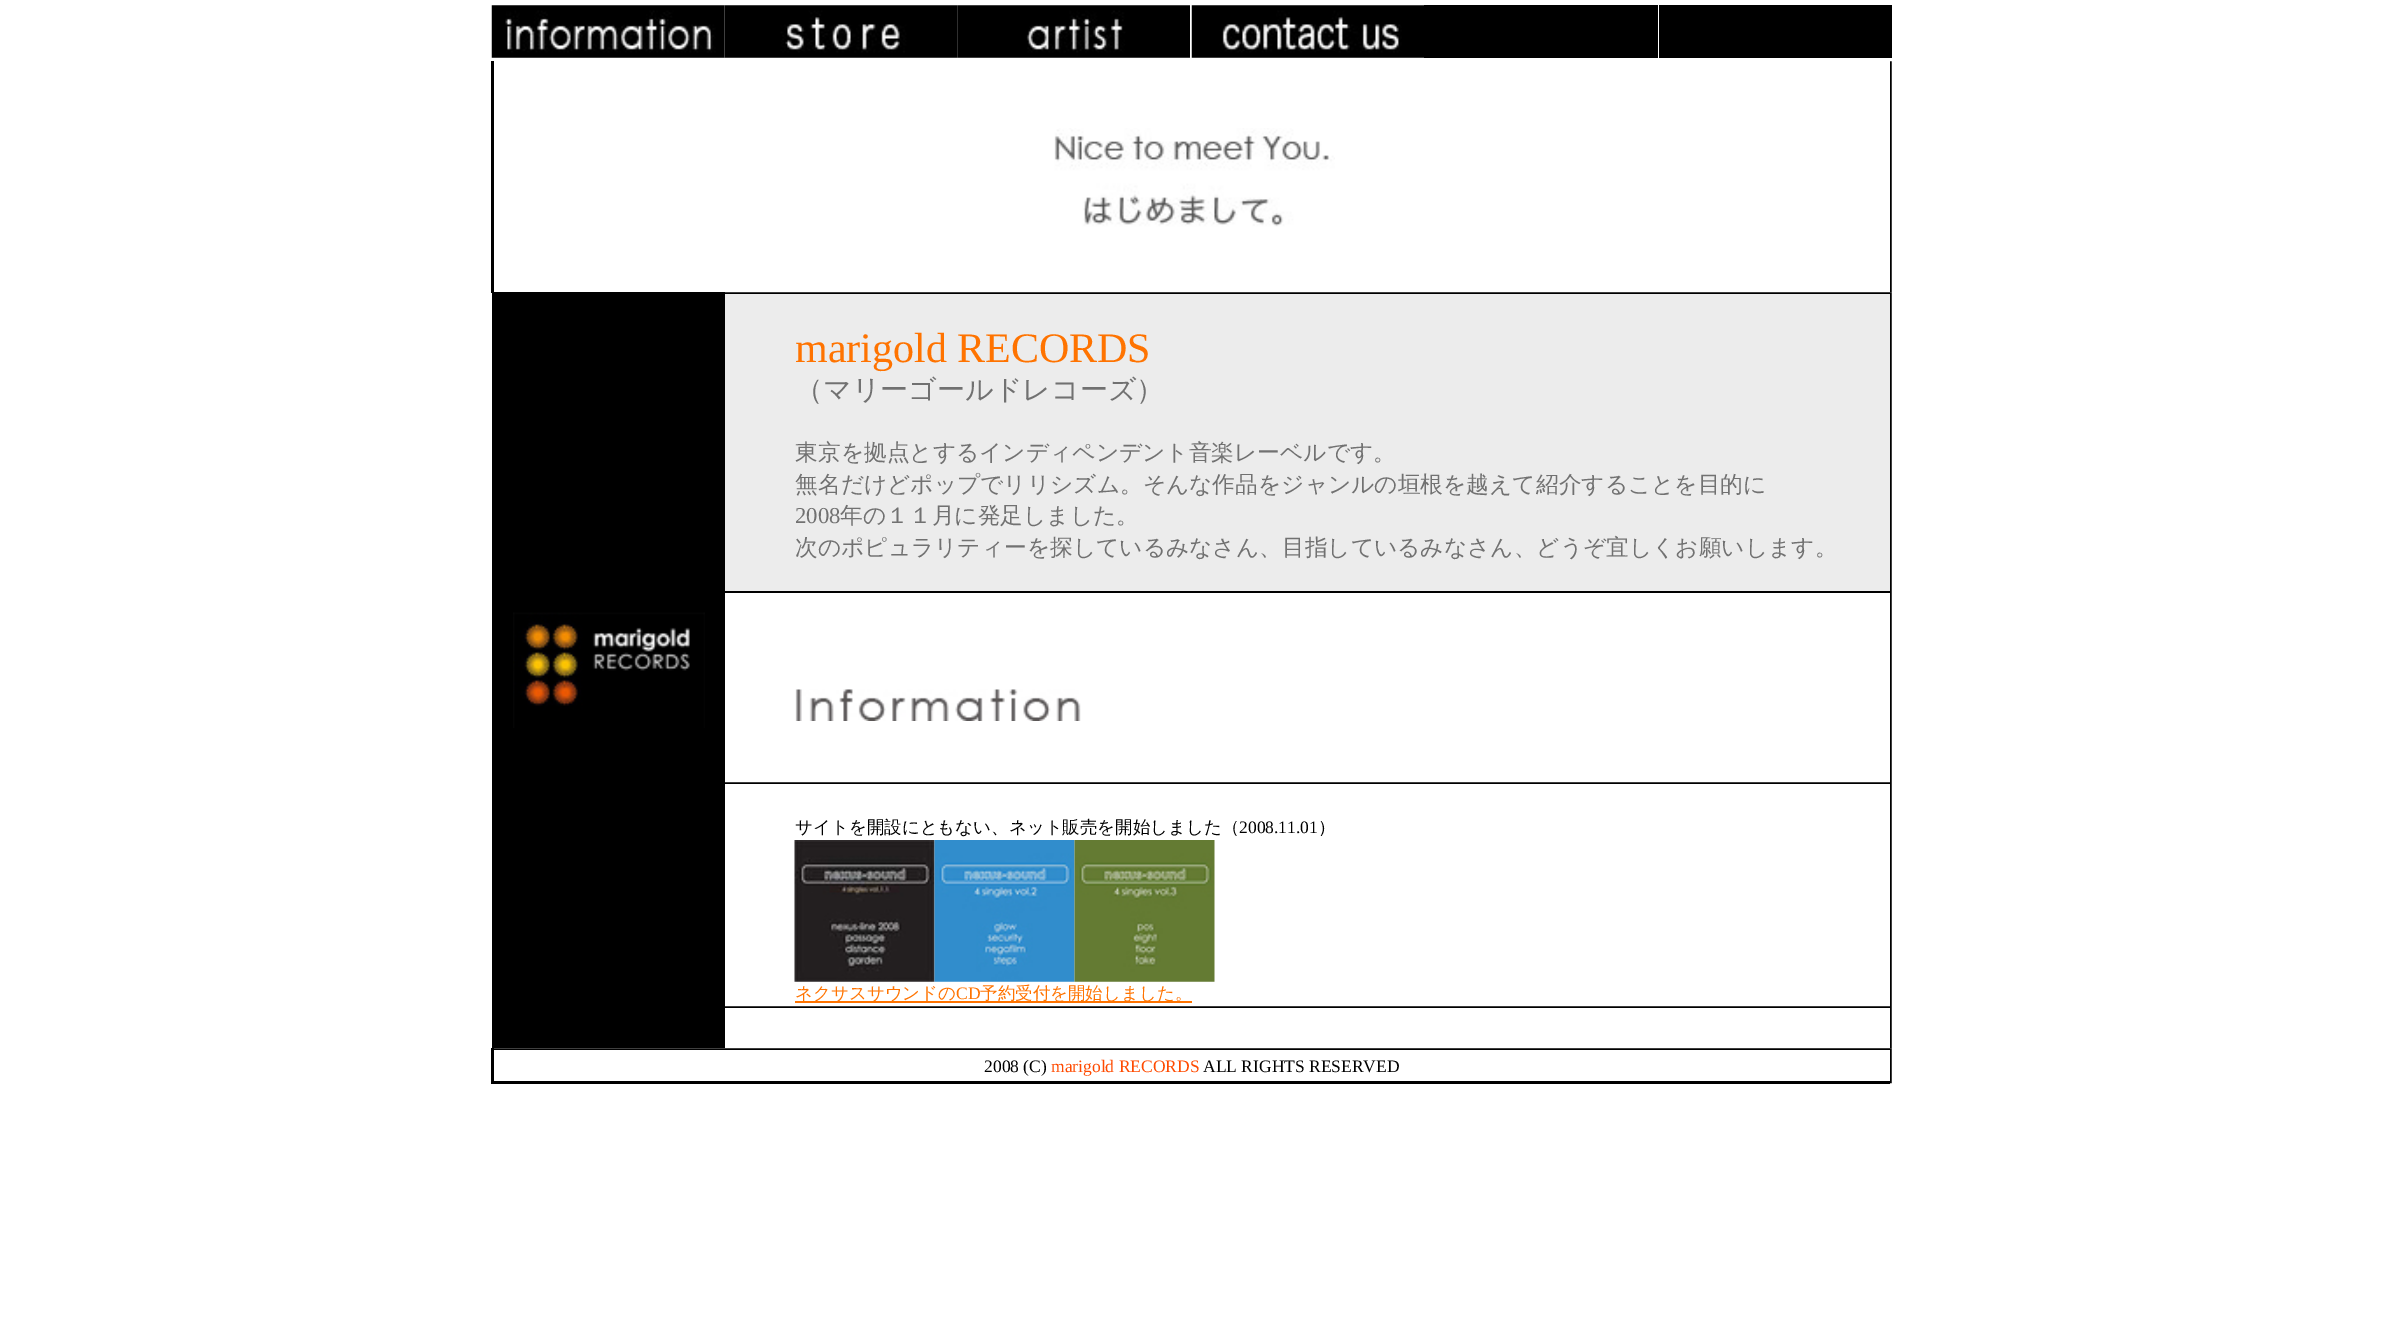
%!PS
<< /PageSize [2382 1322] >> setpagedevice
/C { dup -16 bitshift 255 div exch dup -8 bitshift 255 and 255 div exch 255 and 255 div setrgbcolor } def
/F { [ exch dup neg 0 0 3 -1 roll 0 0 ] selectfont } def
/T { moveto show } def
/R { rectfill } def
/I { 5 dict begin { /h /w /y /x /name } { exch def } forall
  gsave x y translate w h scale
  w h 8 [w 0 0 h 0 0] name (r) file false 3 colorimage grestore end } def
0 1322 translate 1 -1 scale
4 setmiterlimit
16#FFFFFF C
0 0 2382 1322 R
(1.rgb) 491 5 234 53 I
(2.rgb) 724 5 234 53 I
(3.rgb) 957 5 233 53 I
(4.rgb) 1191 5 233 53 I
16#000000 C
1424 5 234 53 R
1659 5 233 53 R
491 61 3 232 R
(5.rgb) 1054 128 281 99 I
(6.rgb) 1890 61 2 232 I
492 292 233 756 R
(7.rgb) 513 612 192 116 I
(8.rgb) 725 292 1165 2 I
16#ECECEC C
725 294 1165 297 R
/LiberationSerif-Regular 42 F
16#FF7300 C
(marigold RECORDS) 795 362 T
/WenQuanYiZenHei-Medium 28 F
16#717171 C
(（マリーゴールドレコーズ）) 795 399 T
/WenQuanYiZenHei-Medium 22.75 F
(東京を拠点とするインディペンデント音楽レーベルです。) 795 460 T
(無名だけどポップでリリシズム。そんな作品をジャンルの垣根を越えて紹介することを目的に) 795 492 T
/LiberationSerif-Regular 22.75 F
(2008) 795 523 T
/WenQuanYiZenHei-Medium 22.75 F
(年の１１月に発足しました。) 840 523 T
(次のポピュラリティーを探しているみなさん、目指しているみなさん、どうぞ宜しくお願いします。) 795 555 T
16#000000 C
725 591 1165 2 R
(9.rgb) 795 689 286 32 I
(8.rgb) 725 782 1165 2 I
/WenQuanYiZenHei-Medium 17.5 F
(サイトを開設にともない、ネット販売を開始しました（) 795 833 T
/LiberationSerif-Regular 17.5 F
(2008.11.01) 1239 833 T
/WenQuanYiZenHei-Medium 17.5 F
(）) 1318 833 T
(10.rgb) 794 840 141 142 I
(11.rgb) 934 840 141 142 I
(12.rgb) 1074 840 141 142 I
16#FF7300 C
795 1001 397 2 R
(ネクサスサウンドの) 795 999 T
/LiberationSerif-Regular 17.5 F
(CD) 956 999 T
/WenQuanYiZenHei-Medium 17.5 F
(予約受付を開始しました。) 980 999 T
(8.rgb) 725 1006 1165 2 I
(13.rgb) 1890 292 2 757 I
16#000000 C
491 1048 3 36 R
(14.rgb) 494 1048 1396 2 I
/LiberationSerif-Regular 17.5 F
(2008 \(C\)) 984 1072 T
16#FF4A00 C
(marigold RECORDS) 1051 1072 T
16#000000 C
(ALL RIGHTS RESERVED) 1203 1072 T
494 1081 1396 3 R
(15.rgb) 1890 1048 2 36 I
showpage
